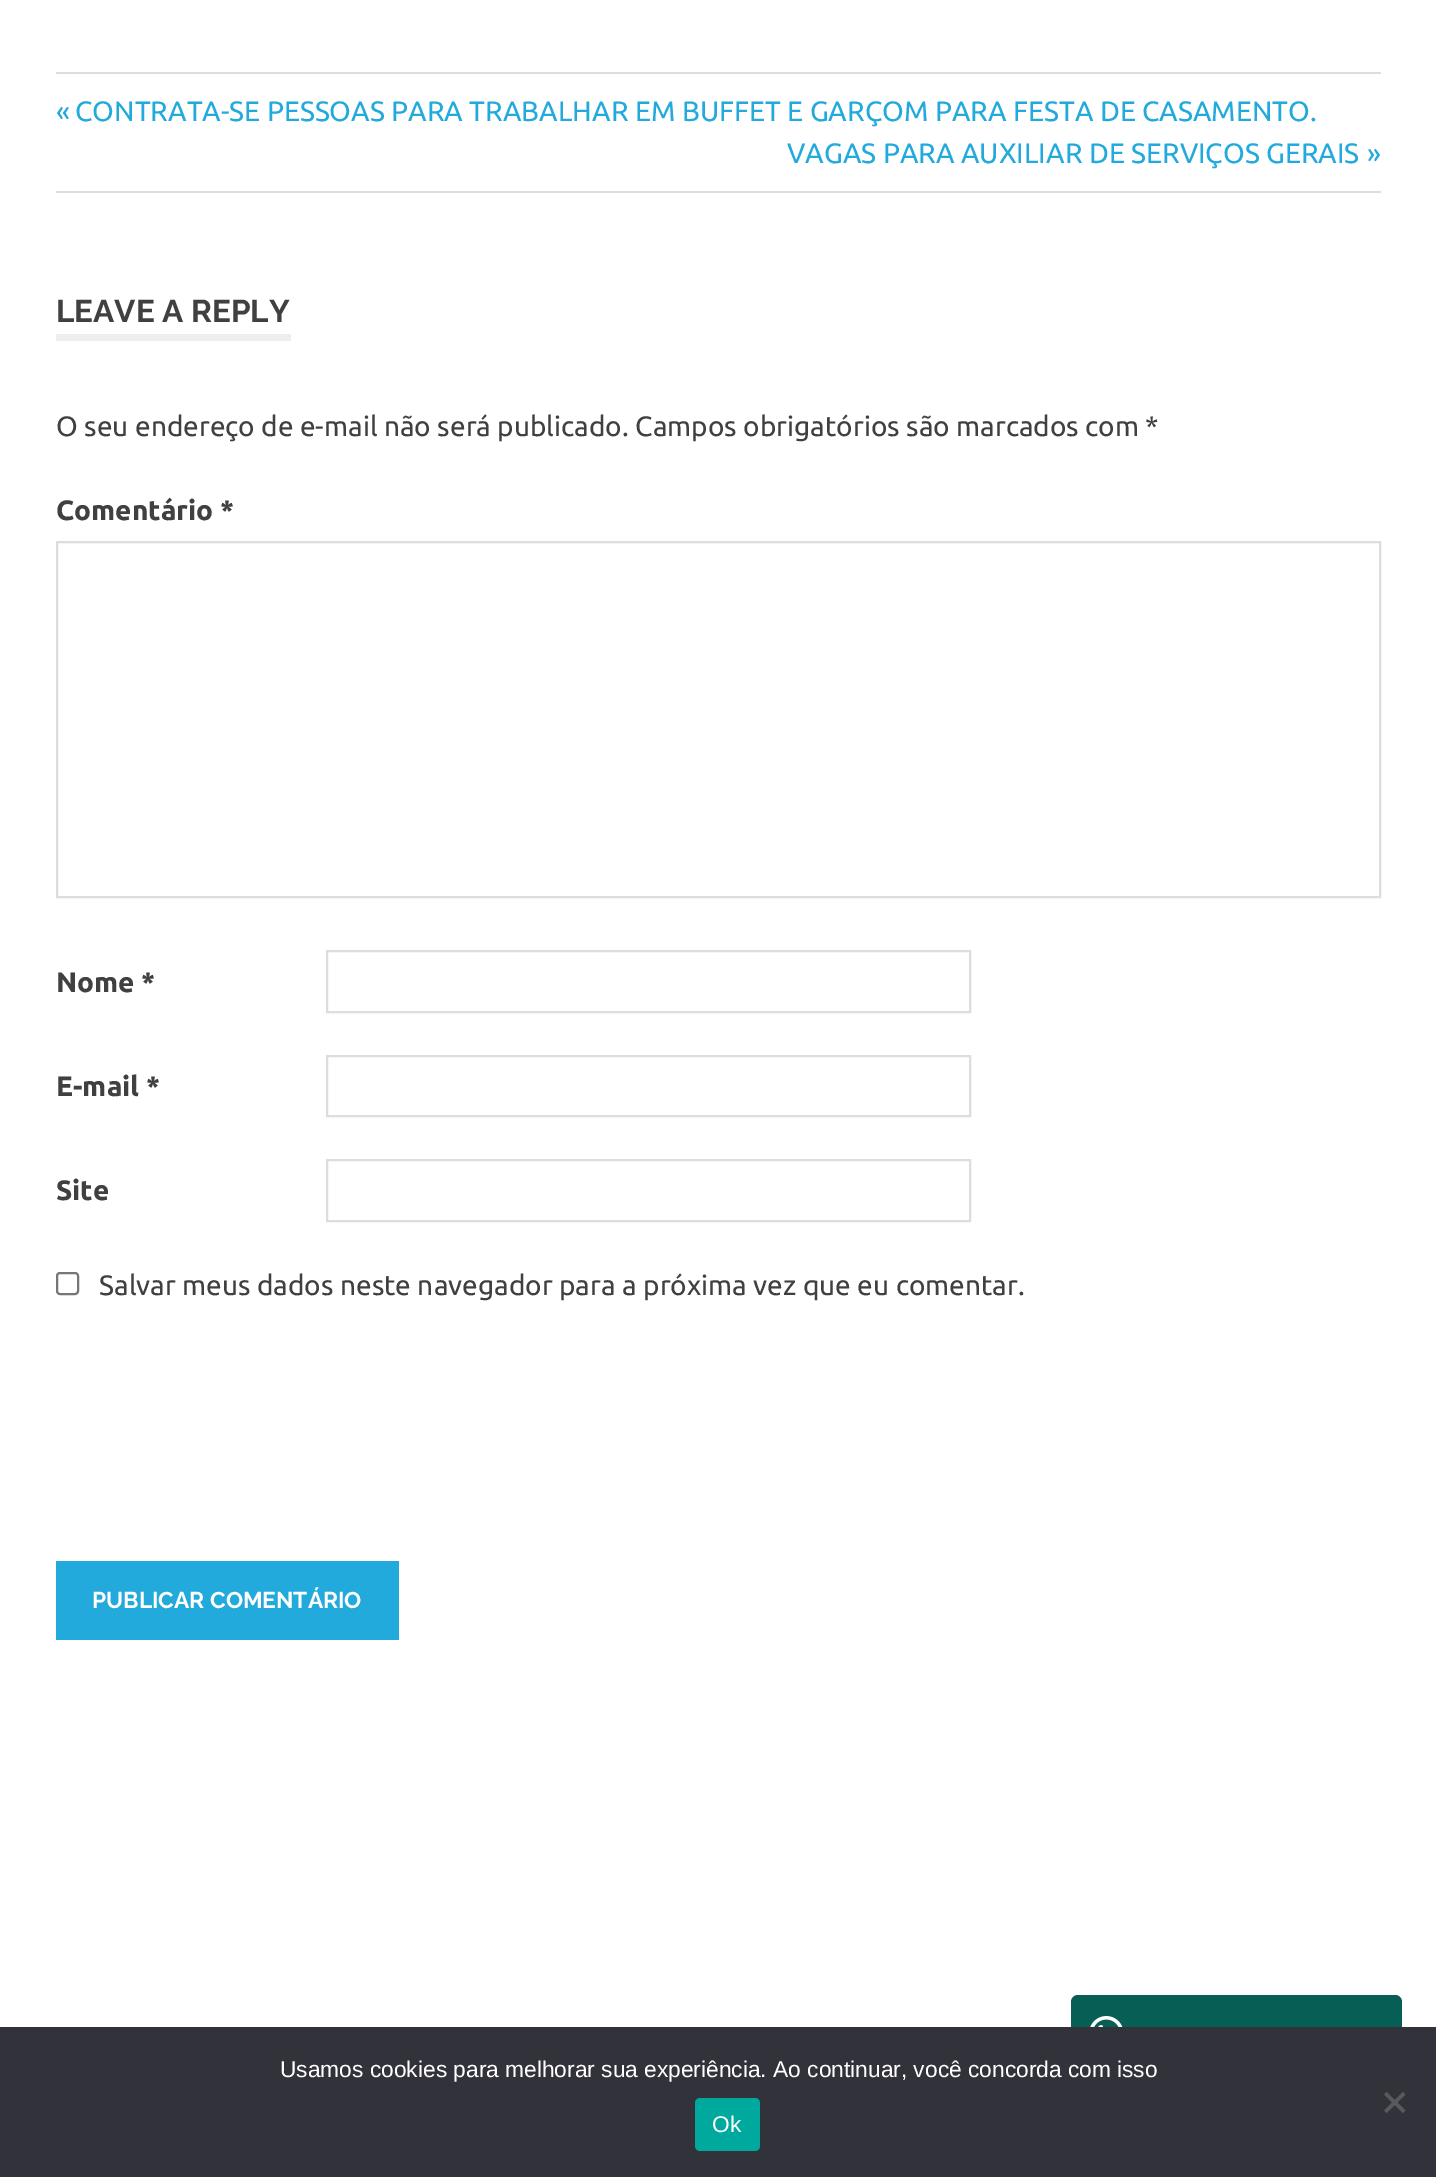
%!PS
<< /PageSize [1436 2177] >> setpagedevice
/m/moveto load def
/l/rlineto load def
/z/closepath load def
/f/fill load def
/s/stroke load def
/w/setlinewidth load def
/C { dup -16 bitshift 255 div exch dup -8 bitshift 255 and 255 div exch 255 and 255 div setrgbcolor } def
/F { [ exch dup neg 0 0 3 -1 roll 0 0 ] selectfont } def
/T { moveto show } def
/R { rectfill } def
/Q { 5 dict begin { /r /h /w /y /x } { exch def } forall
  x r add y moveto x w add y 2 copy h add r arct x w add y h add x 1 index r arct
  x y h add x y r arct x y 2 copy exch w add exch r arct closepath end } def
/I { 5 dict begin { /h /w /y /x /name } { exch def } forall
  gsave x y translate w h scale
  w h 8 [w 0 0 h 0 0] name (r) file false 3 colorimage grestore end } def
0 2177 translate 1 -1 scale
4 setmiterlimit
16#FFFFFF C
0 0 1436 2177 R
16#DDDDDD C
56 72 1325 2 R
56 191 1325 2 R
/Ubuntu-Regular 28 F
16#22AADD C
(«) 56 121 T
(CONTRATA-SE PESSOAS PARA TRABALHAR EM BUFFET E GARÇOM PARA FESTA DE CASAMENTO.) 75 121 T
(VAGAS PARA AUXILIAR DE SERVIÇOS GERAIS) 787 163 T
(») 1367 163 T
16#EEEEEE C
56 334 235 7 R
/Raleway-Bold 31.5 F
16#404040 C
(LEAVE A REPLY) 56 322 T
/Ubuntu-Regular 28 F
(O seu endereço de e-mail não será publicado. Campos obrigatórios são marcados com *) 56 436 T
/Ubuntu-Bold 28 F
(Comentário *) 56 520 T
16#DDDDDD C
2 w
57 542 1323 355 rectstroke
16#404040 C
(Nome *) 56 992 T
16#DDDDDD C
327 951 643 61 rectstroke
16#404040 C
(E-mail *) 56 1096 T
16#DDDDDD C
327 1056 643 60 rectstroke
16#404040 C
(Site) 56 1200 T
16#DDDDDD C
327 1160 643 61 rectstroke
16#767676 C
57 1273 21 21 3 Q s
/Ubuntu-Regular 28 F
16#404040 C
(Salvar meus dados neste navegador para a próxima vez que eu comentar.) 99 1295 T
16#22AADD C
56 1561 343 79 R
/Raleway-Bold 22.75 F
16#FFFFFF C
(PUBLICAR COMENTÁRIO) 92 1608 T
16#075E54 C
1071 1995 331 77 7 Q f
(1.rgb) 1090 2016 33 11 I
16#32323A C
0 2027 1436 150 R
/LiberationSans-Regular 22.75 F
16#FFFFFF C
(Usamos cookies para melhorar sua experiência. Ao continuar, você concorda com isso) 280 2077 T
16#59595D C
1403 2092 m 2.5 2.5 l -19 18.5 l -2.5 -2.5 l z f
1384 2094.5 m 2.5 -2.5 l 19 18.5 l -2.5 2.5 l z f
16#00A99D C
695 2098 65 53 5 Q f
16#FFFFFF C
(Ok) 712 2132 T
showpage
